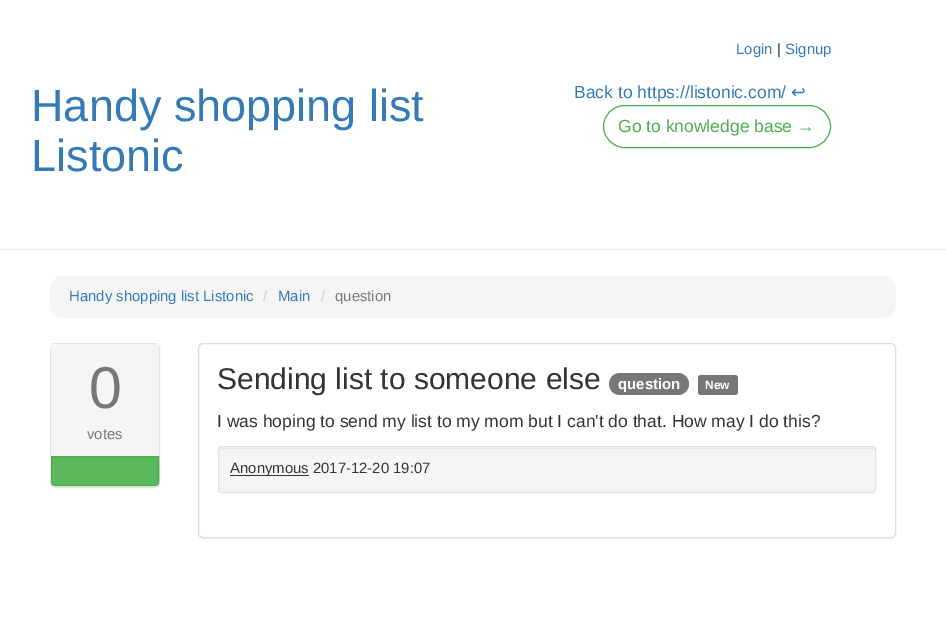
%!PS
<< /PageSize [946 638] /PageUsesTransparency true >> setpagedevice
/m/moveto load def
/l/rlineto load def
/c/rcurveto load def
/z/closepath load def
/f/fill load def
/s/stroke load def
/q/gsave load def
/Q_/grestore load def
/C { dup -16 bitshift 255 div exch dup -8 bitshift 255 and 255 div exch 255 and 255 div setrgbcolor } def
/F { [ exch dup neg 0 0 3 -1 roll 0 0 ] selectfont } def
/T { moveto show } def
/R { rectfill } def
/A { dup .setfillconstantalpha .setstrokeconstantalpha } def
/Q { 5 dict begin { /r /h /w /y /x } { exch def } forall
  x r add y moveto x w add y 2 copy h add r arct x w add y h add x 1 index r arct
  x y h add x y r arct x y 2 copy exch w add exch r arct closepath end } def
/S { 12 dict begin { /a /b /q /h /w /y /x } { exch def } forall gsave /was 0 def
  9 -2 -9 { dup b mul 4 div /e exch def 1 sub .425 mul 2.718 exch exp 1 add a .99 .min exch div /now exch def
    1 1 now sub 1 was sub div sub A /was now def
    w h .min e 2 mul add 0 gt { x e sub y e sub w e 2 mul add h e 2 mul add
      q e add b .6 mul add w h .min 2 div e add .min 0 .max Q fill } if } for grestore end } def
0 .pushpdf14devicefilter
0 638 translate 1 -1 scale
4 setmiterlimit
16#FFFFFF C
0 0 946 638 R
/LiberationSans-Regular 45 F
16#337AB7 C
(Handy shopping list) 31 121 T
(Listonic) 31 171 T
/LiberationSans-Regular 14.9 F
(Login) 736 54 T
16#333333 C
(|) 777 54 T
16#337AB7 C
(Signup) 785 54 T
/LiberationSans-Regular 17.5 F
(Back to https://listonic.com/) 574 98 T
/DejaVuSans-Regular 17.5 F
(↩) 791 98 T
16#4CAE4C C
603.5 105.5 227 42 21 Q s
/LiberationSans-Regular 17.5 F
(Go to knowledge base) 618 132 T
/LiberationSans-Bold 17.5 F
(→) 797 132 T
16#EEEEEE C
0 249 946 1 R
16#F5F5F5 C
50 276 846 42 13 Q f
/LiberationSans-Regular 14.9 F
16#337AB7 C
(Handy shopping list Listonic) 69 301 T
16#CCCCCC C
(/) 263 301 T
16#337AB7 C
(Main) 278 301 T
16#CCCCCC C
(/) 321 301 T
16#777777 C
(question) 335 301 T
16#E3E3E3 C
50.5 343.5 109 144 4.5 Q s
16#F5F5F5 C
51 344 108 112 R
/LiberationSans-Regular 59 F
16#777777 C
(0) 89 408 T
/LiberationSans-Regular 14.9 F
(votes) 87 439 T
16#5CB85C C
51.5 456.5 m 107 0 l 0 25.5 l 0 2 -1.5 3.5 -3.5 3.5 c -100 0 l -2 0 -3.5 -1.5 -3.5 -3.5 c z q f Q_
16#4CAE4C C
s
16#000000 C
198 344 698 195 5 .5 .05 S
16#FFFFFF C
198.5 343.5 697 194 4.5 Q q f Q_
16#DDDDDD C
s
/LiberationSans-Regular 30 F
16#333333 C
(Sending list to someone else) 217 389 T
16#777777 C
609 373 80 22 11 Q f
/LiberationSans-Bold 15 F
16#FFFFFF C
(question) 618 389 T
16#777777 C
698 375 40 20 3 Q f
/LiberationSans-Bold 12 F
16#FFFFFF C
(New) 705 389 T
/LiberationSans-Regular 17.5 F
16#333333 C
(I was hoping to send my list to my mom but I can't do that. How may I do this?) 217 427 T
16#F5F5F5 C
218 446 658 47 4 Q f
16#E9E9E9 C
221 449 m 651 0 l 2 0 3 1 3 2 c 0 -2 -1 -3 -3 -3 c -650 0 l -2 0 -3 1 -3 3 c 0 -1 1 -2 2 -2 c z f
16#E3E3E3 C
218.5 446.5 657 46 3.5 Q s
16#333333 C
230 475 79 1 R
/LiberationSans-Regular 14.9 F
(Anonymous 2017-12-20 19:07) 230 473 T
.poppdf14devicefilter showpage
